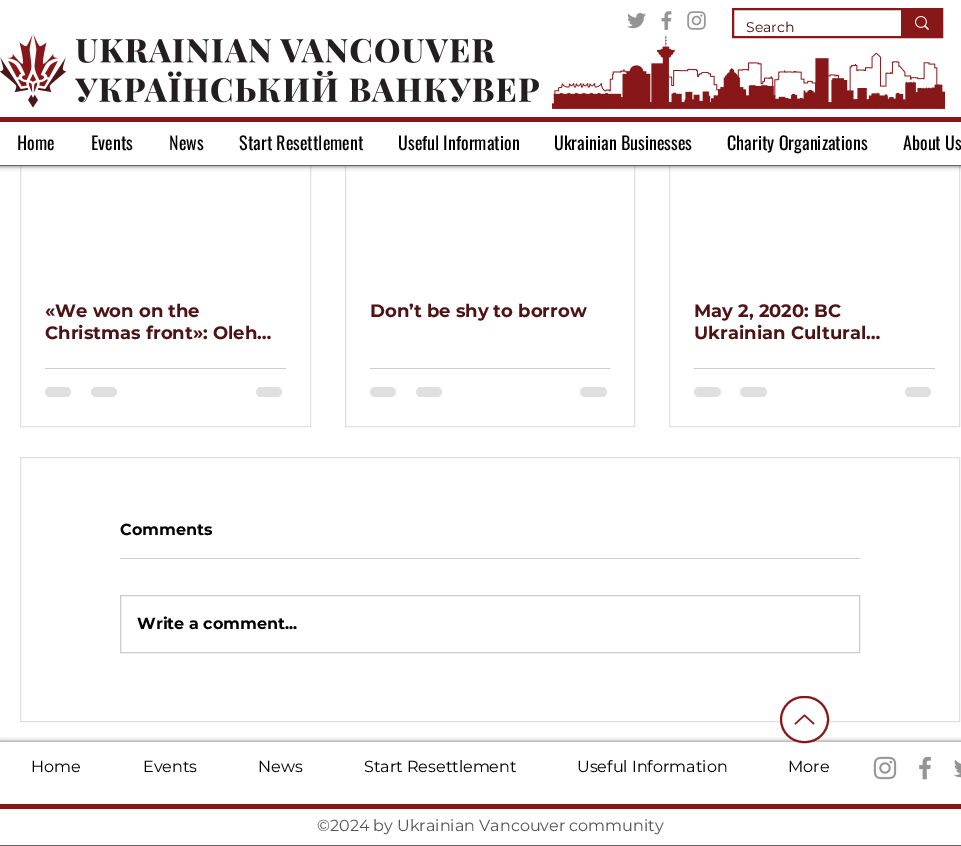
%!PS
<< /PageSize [961 846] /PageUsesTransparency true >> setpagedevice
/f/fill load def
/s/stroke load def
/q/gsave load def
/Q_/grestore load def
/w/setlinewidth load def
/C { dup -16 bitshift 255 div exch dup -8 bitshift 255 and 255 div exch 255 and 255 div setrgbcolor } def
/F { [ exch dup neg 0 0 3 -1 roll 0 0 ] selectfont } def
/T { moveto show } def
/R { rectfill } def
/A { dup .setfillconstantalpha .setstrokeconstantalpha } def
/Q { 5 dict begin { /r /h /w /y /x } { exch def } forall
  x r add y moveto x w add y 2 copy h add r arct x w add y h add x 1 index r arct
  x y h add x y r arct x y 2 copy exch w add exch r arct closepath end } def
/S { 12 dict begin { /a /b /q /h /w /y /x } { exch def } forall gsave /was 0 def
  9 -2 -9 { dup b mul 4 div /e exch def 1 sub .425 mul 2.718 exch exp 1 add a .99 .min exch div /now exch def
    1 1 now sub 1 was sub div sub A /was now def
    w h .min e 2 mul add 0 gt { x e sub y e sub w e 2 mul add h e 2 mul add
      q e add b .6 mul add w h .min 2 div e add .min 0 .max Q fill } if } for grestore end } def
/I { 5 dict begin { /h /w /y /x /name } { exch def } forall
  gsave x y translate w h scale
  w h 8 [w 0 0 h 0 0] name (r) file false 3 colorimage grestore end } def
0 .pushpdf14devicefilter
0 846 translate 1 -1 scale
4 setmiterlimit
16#FFFFFF C
0 0 961 846 R
16#E0E0E0 C
20.5 113.5 290 313 rectstroke
345.5 113.5 289 313 rectstroke
669.5 113.5 290 313 rectstroke
16#000000 C
0 0 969 166 0 2.5 .6 S
16#FFFFFF C
0 0 961 165 R
16#666666 C
0 165 961 1 R
(1.rgb) 627 12 19 17 I
(2.rgb) 661 11 11 19 I
(3.rgb) 687 11 19 19 I
(7.rgb) 552 33 393 76 I
16#871719 C
2 w
733 9 209 28 rectstroke
/Montserrat-Regular 14 F
16#440C0D C
(Search) 746 32 T
16#871719 C
901 10 40 26 R
(4.rgb) 915 16 14 14 I
(5.rgb) 0 34 66 74 I
(6.rgb) 75 38 464 65 I
0 117 961 5 R
/Oswald-Regular 18 F
16#000000 C
(Home) 17 150 T
(Events) 91 150 T
(News) 169 150 T
(Start Resettlement) 239 150 T
(Useful Information) 398 150 T
(Ukrainian Businesses) 554 150 T
(Charity Organizations) 727 150 T
(About Us) 903 150 T
/Montserrat-Bold 18 F
16#4E1315 C
(«We won on the) 45 317 T
(Christmas front»: Oleh…) 45 339 T
16#CCCCCC C
45 368 241 1 R
16#E0E0E0 C
45 387 26 10 5 Q f
91 387 26 10 5 Q f
256 387 26 10 5 Q f
16#4E1315 C
(Don’t be shy to borrow) 370 317 T
16#CCCCCC C
370 368 240 1 R
16#E0E0E0 C
370 387 26 10 5 Q f
416 387 26 10 5 Q f
580 387 27 10 5 Q f
16#4E1315 C
(May 2, 2020: BC) 694 317 T
(Ukrainian Cultural…) 694 339 T
16#CCCCCC C
694 368 241 1 R
16#E0E0E0 C
694 387 27 10 5 Q f
740 387 27 10 5 Q f
905 387 26 10 5 Q f
1 w
20.5 457.5 939 264 rectstroke
/Montserrat-Bold 16 F
16#000000 C
(Comments) 120 535 T
16#CCCCCC C
120 558 740 1 R
120.5 595.5 739 57 rectstroke
16#000000 C
(Write a comment...) 137 629 T
q
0 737 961 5 rectclip
0 742 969 104 0 2.5 .6 S
Q_
16#FFFFFF C
781 697 47 45 22.5 Q q f Q_
16#871719 C
2 w
s
(8.rgb) 794 714 21 11 I
16#666666 C
0 845 961 1 R
/Montserrat-Regular 16 F
16#000000 C
(Home) 31 772 T
(Events) 143 772 T
(News) 258 772 T
(Start Resettlement) 364 772 T
(Useful Information) 577 772 T
(More) 788 772 T
(9.rgb) 873 756 24 24 I
(10.rgb) 919 756 12 24 I
(11.rgb) 954 760 7 18 I
16#871719 C
0 804 961 5 R
16#555555 C
(©2024 by Ukrainian Vancouver community) 317 831 T
.poppdf14devicefilter showpage
